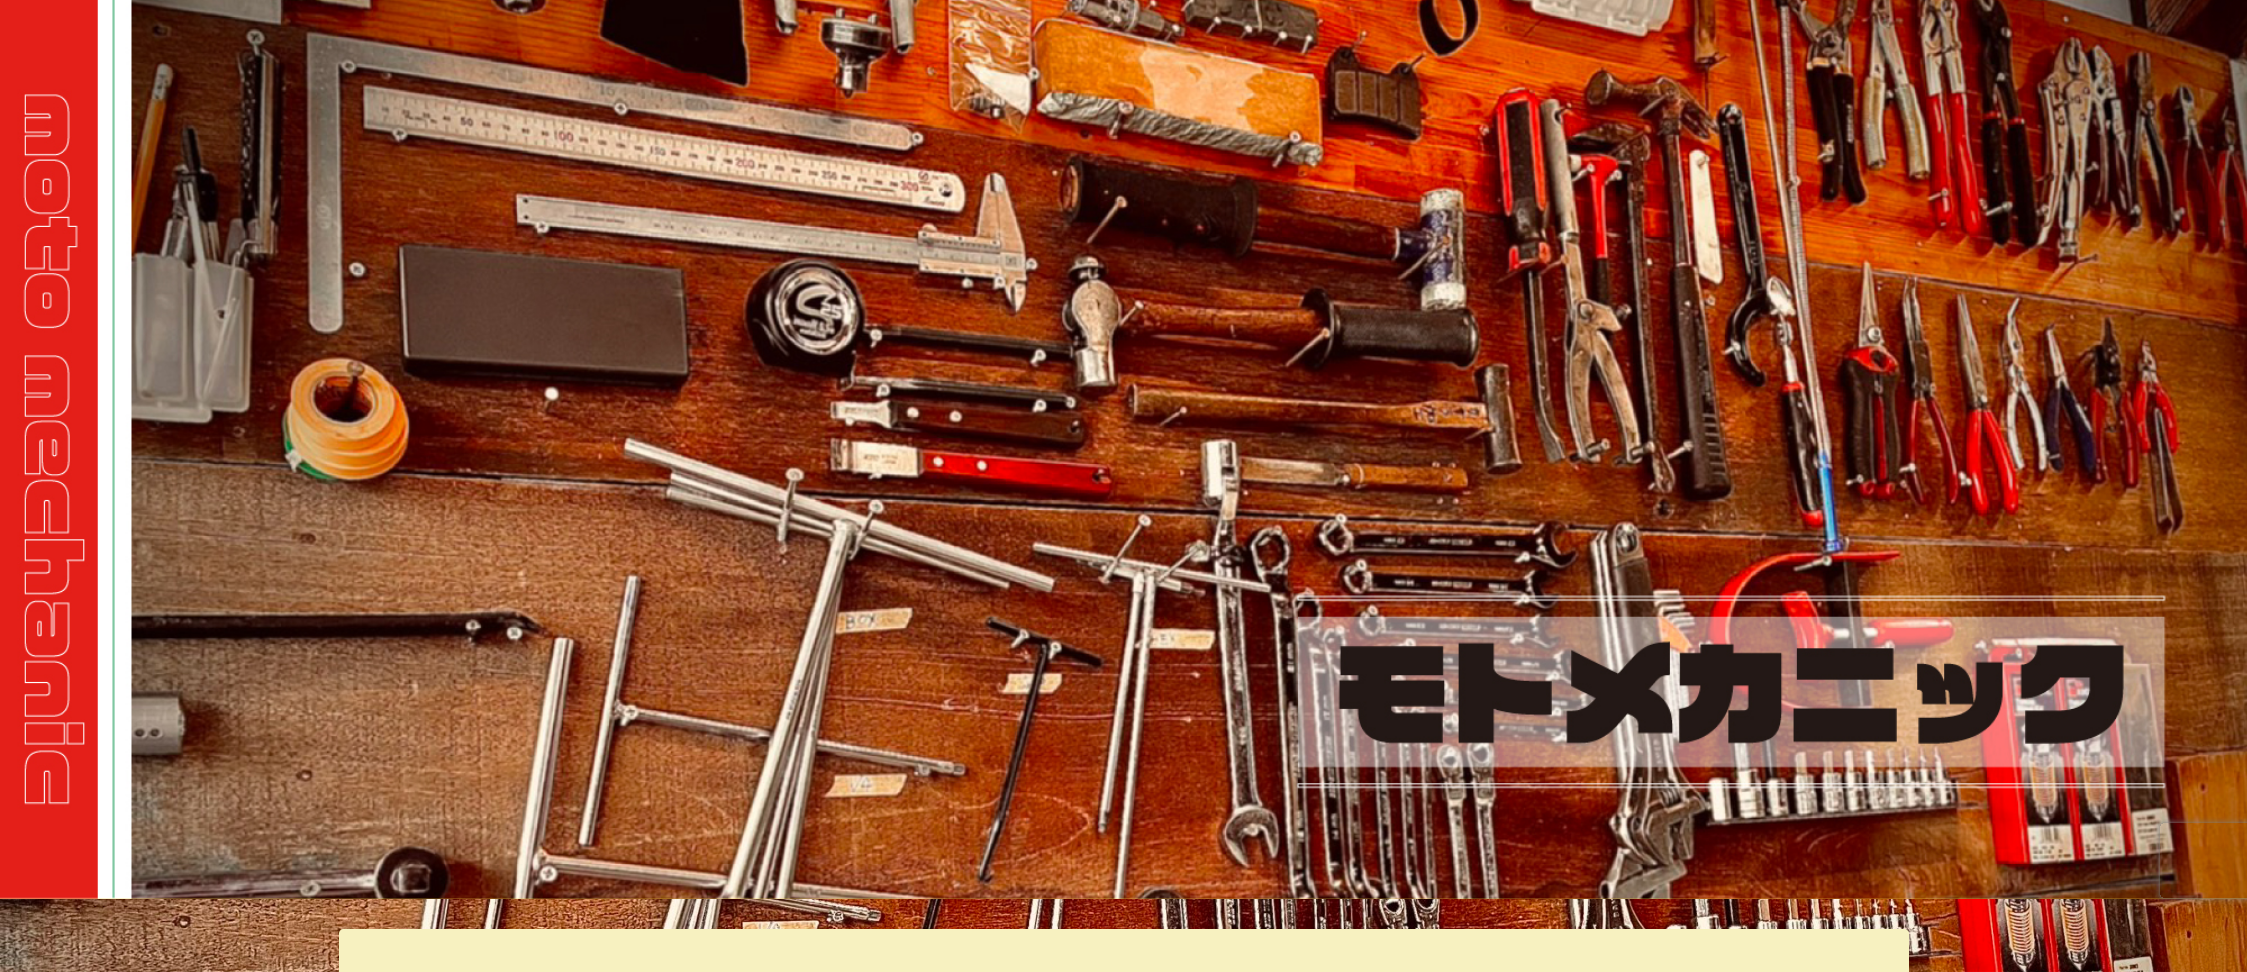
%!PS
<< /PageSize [2247 972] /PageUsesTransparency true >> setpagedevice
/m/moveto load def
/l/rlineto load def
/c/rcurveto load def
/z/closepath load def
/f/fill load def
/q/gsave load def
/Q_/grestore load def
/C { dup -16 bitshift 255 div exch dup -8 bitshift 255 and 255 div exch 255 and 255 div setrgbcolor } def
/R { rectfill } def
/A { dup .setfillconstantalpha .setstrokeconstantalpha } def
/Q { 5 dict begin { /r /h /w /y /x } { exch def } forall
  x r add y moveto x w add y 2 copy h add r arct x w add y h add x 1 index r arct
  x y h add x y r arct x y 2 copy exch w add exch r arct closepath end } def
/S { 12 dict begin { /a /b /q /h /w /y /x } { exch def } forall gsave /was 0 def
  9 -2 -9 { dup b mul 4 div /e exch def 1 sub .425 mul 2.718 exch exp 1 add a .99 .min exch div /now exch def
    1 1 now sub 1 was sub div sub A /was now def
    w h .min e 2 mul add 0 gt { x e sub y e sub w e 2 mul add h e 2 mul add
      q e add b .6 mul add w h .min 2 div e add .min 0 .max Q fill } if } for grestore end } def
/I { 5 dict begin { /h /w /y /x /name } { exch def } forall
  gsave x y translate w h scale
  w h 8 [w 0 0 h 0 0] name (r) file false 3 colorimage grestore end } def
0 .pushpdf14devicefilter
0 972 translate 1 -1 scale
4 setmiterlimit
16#FFFFFF C
0 0 2247 972 R
(1.rgb) 0 898 2247 74 I
(2.rgb) 0 0 2247 899 I
16#F7F1C0 C
339 929 1570 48 5 Q f
q
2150 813 m 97 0 l 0 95 l -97 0 l z 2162.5 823 m 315 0 l 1.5 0 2.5 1 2.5 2.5 c 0 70 l 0 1.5 -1 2.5 -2.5 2.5 c -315 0 l -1.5 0 -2.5 -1 -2.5 -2.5 c 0 -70 l 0 -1.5 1 -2.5 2.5 -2.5 c z eoclip newpath
16#808080 C
2160 823 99 75 2.5 3 1 S
Q_
.poppdf14devicefilter showpage
